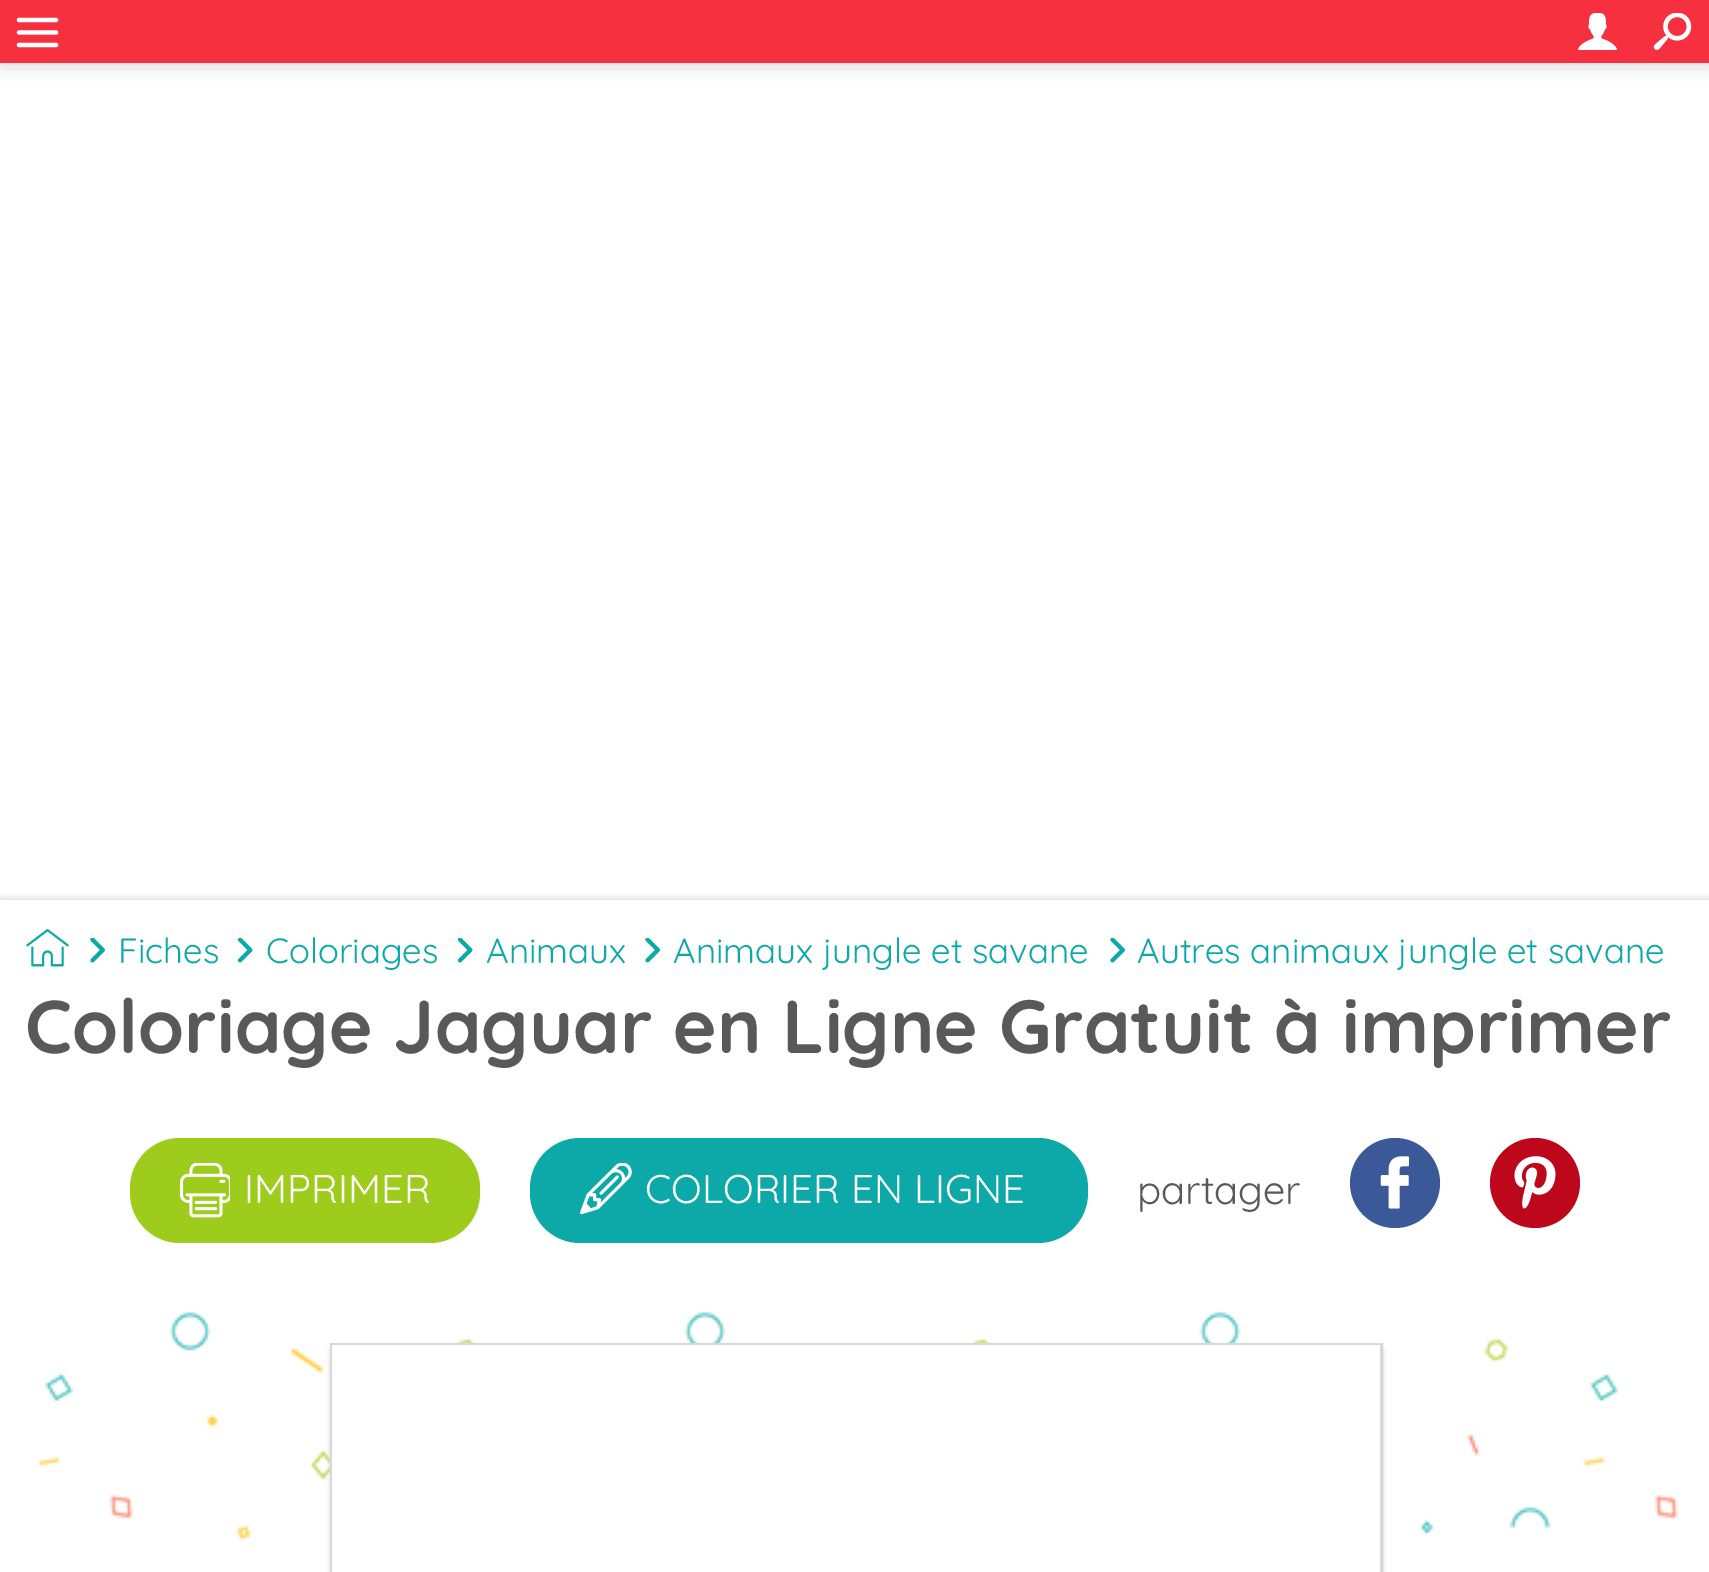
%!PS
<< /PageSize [1709 1572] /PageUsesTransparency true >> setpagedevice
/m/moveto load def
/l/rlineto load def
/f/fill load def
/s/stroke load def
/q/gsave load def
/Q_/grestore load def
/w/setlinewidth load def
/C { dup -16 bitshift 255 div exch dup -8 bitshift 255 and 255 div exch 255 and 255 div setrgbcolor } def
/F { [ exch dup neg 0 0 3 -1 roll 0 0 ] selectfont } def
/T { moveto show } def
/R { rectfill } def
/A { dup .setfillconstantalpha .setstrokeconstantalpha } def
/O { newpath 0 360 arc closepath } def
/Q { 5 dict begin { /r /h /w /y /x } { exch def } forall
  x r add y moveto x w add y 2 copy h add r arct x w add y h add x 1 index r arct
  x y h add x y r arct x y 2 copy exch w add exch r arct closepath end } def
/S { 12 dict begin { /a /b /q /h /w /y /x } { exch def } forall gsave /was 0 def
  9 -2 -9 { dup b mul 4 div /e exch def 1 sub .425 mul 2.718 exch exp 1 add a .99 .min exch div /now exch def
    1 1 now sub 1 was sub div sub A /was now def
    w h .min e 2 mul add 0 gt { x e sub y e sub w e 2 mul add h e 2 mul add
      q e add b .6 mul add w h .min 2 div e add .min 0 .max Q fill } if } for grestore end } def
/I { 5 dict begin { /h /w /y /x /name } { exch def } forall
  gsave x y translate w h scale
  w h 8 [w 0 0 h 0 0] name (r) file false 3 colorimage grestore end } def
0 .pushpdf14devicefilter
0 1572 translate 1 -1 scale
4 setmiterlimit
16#FFFFFF C
0 0 1709 1572 R
16#000000 C
0 0 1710 63 0 10 .2 S
16#F6303E C
0 0 1709 63 R
16#FFFFFF C
4.2 w
1 setlinecap
19 32.5 m 37 0 l 19 20 m 37 0 l 19 45 m 37 0 l s
(1.rgb) 1578 13 39 37 I
(2.rgb) 1653 13 39 37 I
q
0 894 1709 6 rectclip
16#000000 C
0 900 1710 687 0 5 .2 S
Q_
(3.rgb) 26 929 43 38 I
(4.rgb) 90 938 15 25 I
/Quicksand-Regular 35 F
16#0DA9A8 C
(Fiches) 118 963 T
(5.rgb) 238 938 15 25 I
(Coloriages) 266 963 T
(5.rgb) 458 938 15 25 I
(Animaux) 486 963 T
(4.rgb) 645 938 15 25 I
(Animaux jungle et savane) 673 963 T
(4.rgb) 1110 938 15 25 I
(Autres animaux jungle et savane) 1137 963 T
/Quicksand-Bold 75 F
16#595959 C
(Coloriage Jaguar en Ligne Gratuit à imprimer) 25 1053 T
16#9ECC1D C
130 1138 350 105 50 Q f
(6.rgb) 180 1163 50 55 I
/Quicksand-Regular 40 F
16#FFFFFF C
(IMPRIMER) 244 1203 T
16#0DA9A8 C
530 1138 558 105 50 Q f
(7.rgb) 580 1163 52 52 I
16#FFFFFF C
(COLORIER EN LIGNE) 645 1203 T
16#595959 C
(partager) 1137 1204 T
16#3B5998 C
1395 1183 45 O f
(8.rgb) 1380 1156 29 53 I
16#BD081B C
1535 1183 45 O f
(9.rgb) 1514 1156 42 53 I
(10.rgb) 37 1311 1642 230 I
16#D8D8D8 C
330 1350 1053 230 0 2.5 1 S
3 w
0 setlinecap
331.5 1344.5 1050 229 rectstroke
16#FFFFFF C
332 1345 1048 227 R
.poppdf14devicefilter showpage
